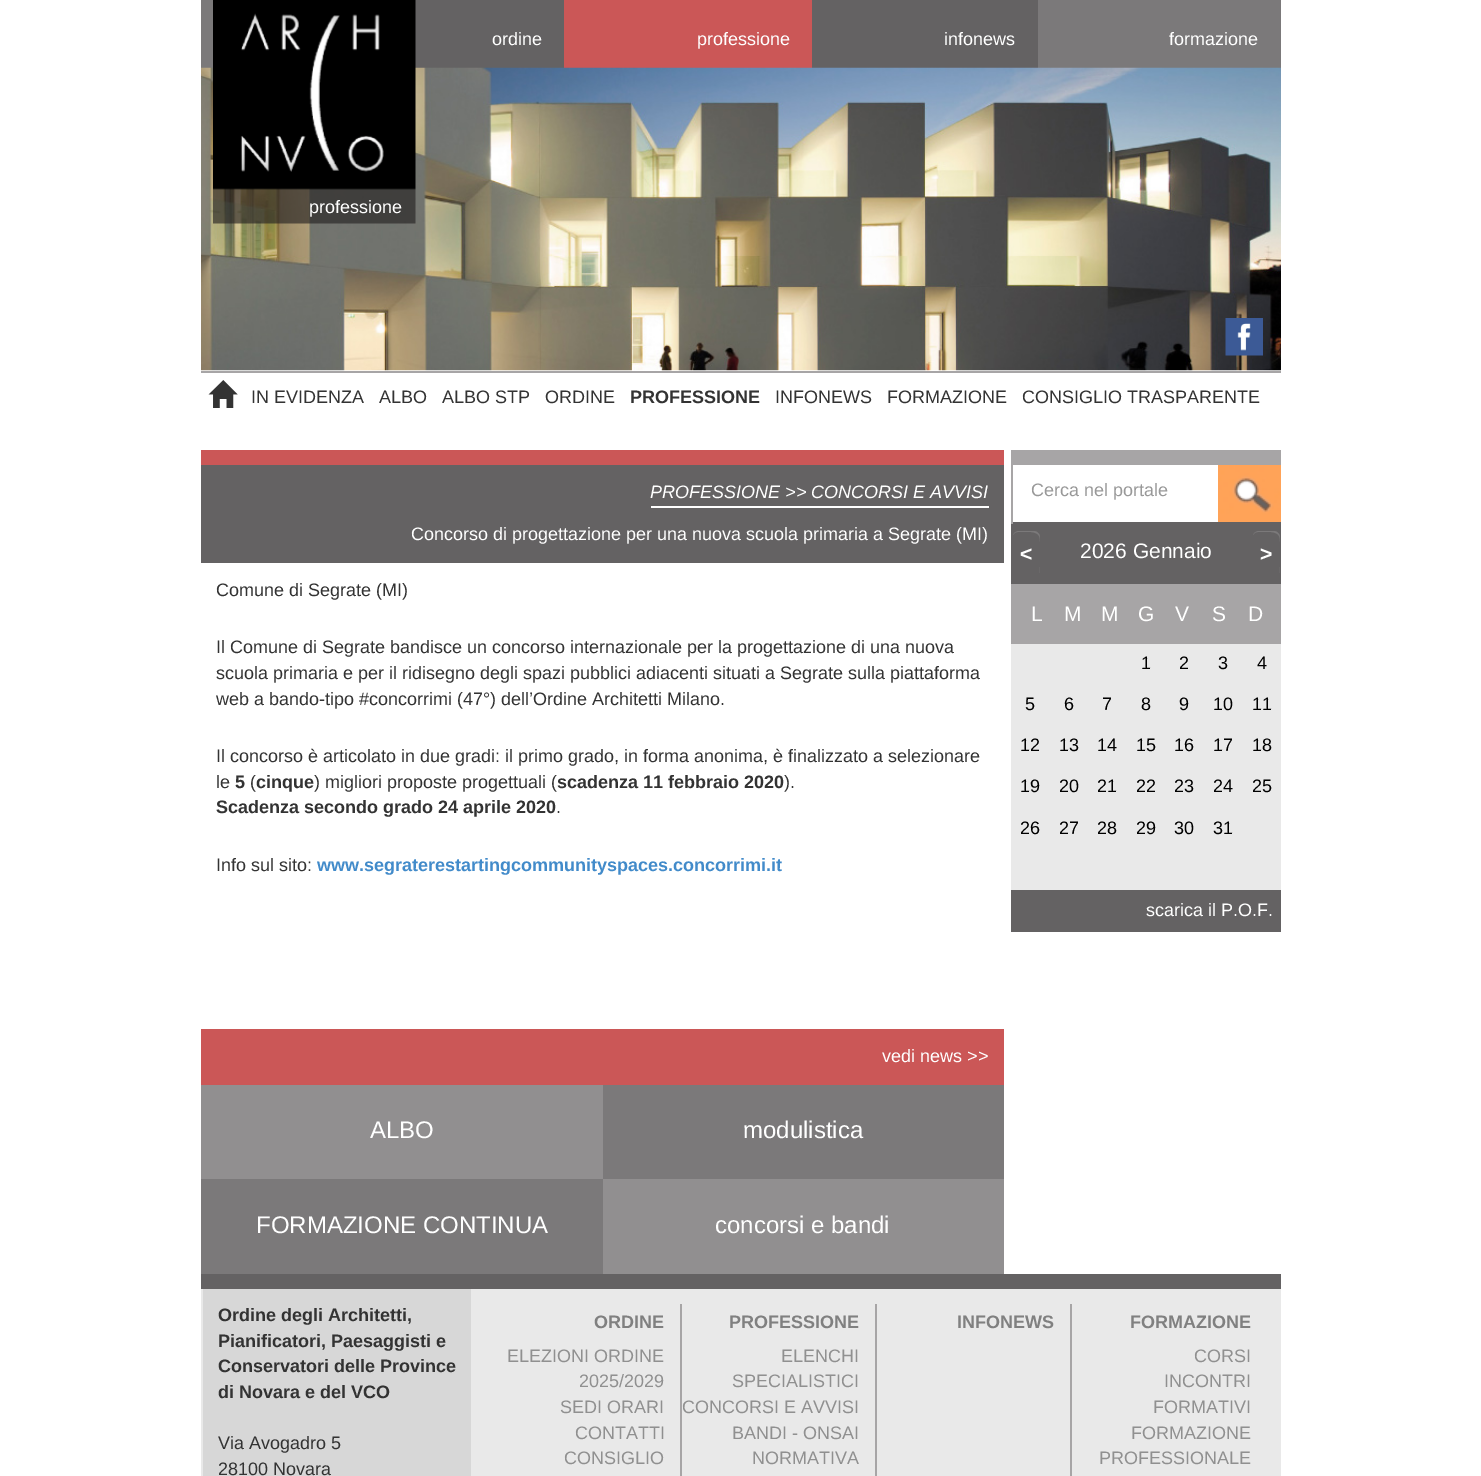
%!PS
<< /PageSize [1481 1476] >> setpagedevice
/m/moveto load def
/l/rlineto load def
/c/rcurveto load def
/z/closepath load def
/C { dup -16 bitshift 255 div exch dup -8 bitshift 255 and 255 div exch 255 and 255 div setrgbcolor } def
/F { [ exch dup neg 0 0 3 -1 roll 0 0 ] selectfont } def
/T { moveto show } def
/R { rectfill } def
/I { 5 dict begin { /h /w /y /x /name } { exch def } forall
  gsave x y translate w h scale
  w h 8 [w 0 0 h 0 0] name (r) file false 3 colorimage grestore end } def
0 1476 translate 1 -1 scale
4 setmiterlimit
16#FFFFFF C
0 0 1481 1476 R
16#7B797A C
201 0 12 68 R
16#646263 C
415 0 149 68 R
/LiberationSans-Regular 18 F
16#FFFFFF C
(ordine) 492 45 T
16#CB5757 C
564 0 248 68 R
16#FFFFFF C
(professione) 697 45 T
16#646263 C
812 0 226 68 R
16#FFFFFF C
(infonews) 944 45 T
16#7B797A C
1038 0 243 68 R
16#FFFFFF C
(formazione) 1169 45 T
(1.rgb) 201 67 1080 304 I
(2.rgb) 213 0 203 224 I
(professione) 309 213 T
(3.rgb) 1225 318 38 38 I
16#A7A5A6 C
201 371 1080 2 R
(4.rgb) 208 380 30 28 I
16#333333 C
(IN EVIDENZA) 251 403 T
(ALBO) 379 403 T
(ALBO STP) 442 403 T
(ORDINE) 545 403 T
/LiberationSans-Bold 18 F
(PROFESSIONE) 630 403 T
/LiberationSans-Regular 18 F
(INFONEWS) 775 403 T
(FORMAZIONE) 887 403 T
(CONSIGLIO TRASPARENTE) 1022 403 T
16#CB5757 C
201 450 803 15 R
16#646263 C
201 465 803 98 R
16#FFFFFF C
651 506 338 2 R
/LiberationSans-Italic 18 F
(PROFESSIONE >> CONCORSI E AVVISI) 650 498 T
/LiberationSans-Regular 18 F
(Concorso di progettazione per una nuova scuola primaria a Segrate \(MI\)) 411 540 T
16#333333 C
(Comune di Segrate \(MI\)) 216 596 T
(Il Comune di Segrate bandisce un concorso internazionale per la progettazione di una nuova) 216 653 T
(scuola primaria e per il ridisegno degli spazi pubblici adiacenti situati a Segrate sulla piattaforma) 216 679 T
(web a bando-tipo #concorrimi \(47°\) dell’Ordine Architetti Milano.) 216 705 T
(Il concorso è articolato in due gradi: il primo grado, in forma anonima, è finalizzato a selezionare) 216 762 T
(le) 216 788 T
/LiberationSans-Bold 18 F
(5) 235 788 T
/LiberationSans-Regular 18 F
(\() 250 788 T
/LiberationSans-Bold 18 F
(cinque) 256 788 T
/LiberationSans-Regular 18 F
(\) migliori proposte progettuali \() 314 788 T
/LiberationSans-Bold 18 F
(scadenza 11 febbraio 2020) 557 788 T
/LiberationSans-Regular 18 F
(\).) 784 788 T
/LiberationSans-Bold 18 F
(Scadenza secondo grado 24 aprile 2020) 216 813 T
/LiberationSans-Regular 18 F
(.) 556 813 T
(Info sul sito:) 216 871 T
/LiberationSans-Bold 18 F
16#428BCA C
(www.segraterestartingcommunityspaces.concorrimi.it) 317 871 T
16#CB5757 C
201 1029 803 56 R
/LiberationSans-Regular 18 F
16#FFFFFF C
(vedi news >>) 882 1062 T
16#918F90 C
201 1085 803 189 R
/LiberationSans-Regular 24 F
16#FFFFFF C
(ALBO) 370 1138 T
16#7B797A C
603 1085 401 94 R
16#FFFFFF C
(modulistica) 743 1138 T
16#7B797A C
201 1179 402 95 R
16#FFFFFF C
(FORMAZIONE CONTINUA) 256 1233 T
(concorsi e bandi) 715 1233 T
16#A7A5A6 C
1011 450 270 15 R
16#646263 C
1011 522 270 62 R
16#A7A5A6 C
1011 465 2 59 R
/LiberationSans-Regular 18 F
16#999999 C
(Cerca nel portale) 1031 496 T
(5.rgb) 1218 465 63 57 I
16#A7A5A6 C
1011 584 270 60 R
16#7B797A C
1018 532 m 13 0 l 8 1 9 4 9 10 c 0 -5 l 0 -3 -3 -6 -6 -6 c -15 0 l -3 0 -5 2 -6 4 c 1 -2 3 -3 5 -3 c z 1040 567 m -1 6 l z eofill
/LiberationSans-Bold 21 F
16#FFFFFF C
(<) 1020 561 T
/LiberationSans-Regular 21 F
(2026 Gennaio) 1080 558 T
16#7B797A C
1258 532 m 13 0 l 8 1 9 4 9 10 c 0 -5 l 0 -3 -3 -6 -6 -6 c -15 0 l -3 0 -5 2 -6 4 c 1 -2 3 -3 5 -3 c z 1280 567 m -1 6 l z eofill
/LiberationSans-Bold 21 F
16#FFFFFF C
(>) 1260 561 T
/LiberationSans-Regular 21 F
(L) 1031 621 T
(M) 1064 621 T
(M) 1101 621 T
(G) 1138 621 T
(V) 1175 621 T
(S) 1212 621 T
(D) 1248 621 T
16#E9E9E9 C
1011 644 270 246 R
/LiberationSans-Regular 18 F
16#000000 C
(1) 1141 669 T
(2) 1179 669 T
(3) 1218 669 T
(4) 1257 669 T
(5) 1025 710 T
(6) 1064 710 T
(7) 1102 710 T
(8) 1141 710 T
(9) 1179 710 T
(10) 1213 710 T
(11) 1252 710 T
(12) 1020 751 T
(13) 1059 751 T
(14) 1097 751 T
(15) 1136 751 T
(16) 1174 751 T
(17) 1213 751 T
(18) 1252 751 T
(19) 1020 792 T
(20) 1059 792 T
(21) 1097 792 T
(22) 1136 792 T
(23) 1174 792 T
(24) 1213 792 T
(25) 1252 792 T
(26) 1020 834 T
(27) 1059 834 T
(28) 1097 834 T
(29) 1136 834 T
(30) 1174 834 T
(31) 1213 834 T
16#646263 C
1011 890 270 42 R
16#FFFFFF C
(scarica il P.O.F.) 1146 916 T
16#646263 C
201 1274 1080 15 R
16#E9E9E9 C
201 1289 2 187 R
16#D7D7D7 C
203 1289 268 187 R
/LiberationSans-Bold 18 F
16#333333 C
(Ordine degli Architetti,) 218 1321 T
(Pianificatori, Paesaggisti e) 218 1347 T
(Conservatori delle Province) 218 1372 T
(di Novara e del VCO) 218 1398 T
/LiberationSans-Regular 18 F
(Via Avogadro 5) 218 1449 T
(28100 Novara) 218 1475 T
16#E9E9E9 C
471 1289 810 187 R
16#A7A5A6 C
680 1304 2 172 R
/LiberationSans-Bold 18 F
16#808080 C
(ORDINE) 594 1328 T
/LiberationSans-Regular 18 F
16#909090 C
(ELEZIONI ORDINE) 507 1362 T
(2025/2029) 579 1387 T
(SEDI ORARI) 560 1413 T
(CONTATTI) 575 1439 T
(CONSIGLIO) 564 1464 T
16#A7A5A6 C
875 1304 2 172 R
/LiberationSans-Bold 18 F
16#808080 C
(PROFESSIONE) 729 1328 T
/LiberationSans-Regular 18 F
16#909090 C
(ELENCHI) 781 1362 T
(SPECIALISTICI) 732 1387 T
(CONCORSI E AVVISI) 682 1413 T
(BANDI - ONSAI) 732 1439 T
(NORMATIVA) 752 1464 T
16#A7A5A6 C
1070 1304 2 172 R
/LiberationSans-Bold 18 F
16#808080 C
(INFONEWS) 957 1328 T
(FORMAZIONE) 1130 1328 T
/LiberationSans-Regular 18 F
16#909090 C
(CORSI) 1194 1362 T
(INCONTRI) 1164 1387 T
(FORMATIVI) 1153 1413 T
(FORMAZIONE) 1131 1439 T
(PROFESSIONALE) 1099 1464 T
showpage
